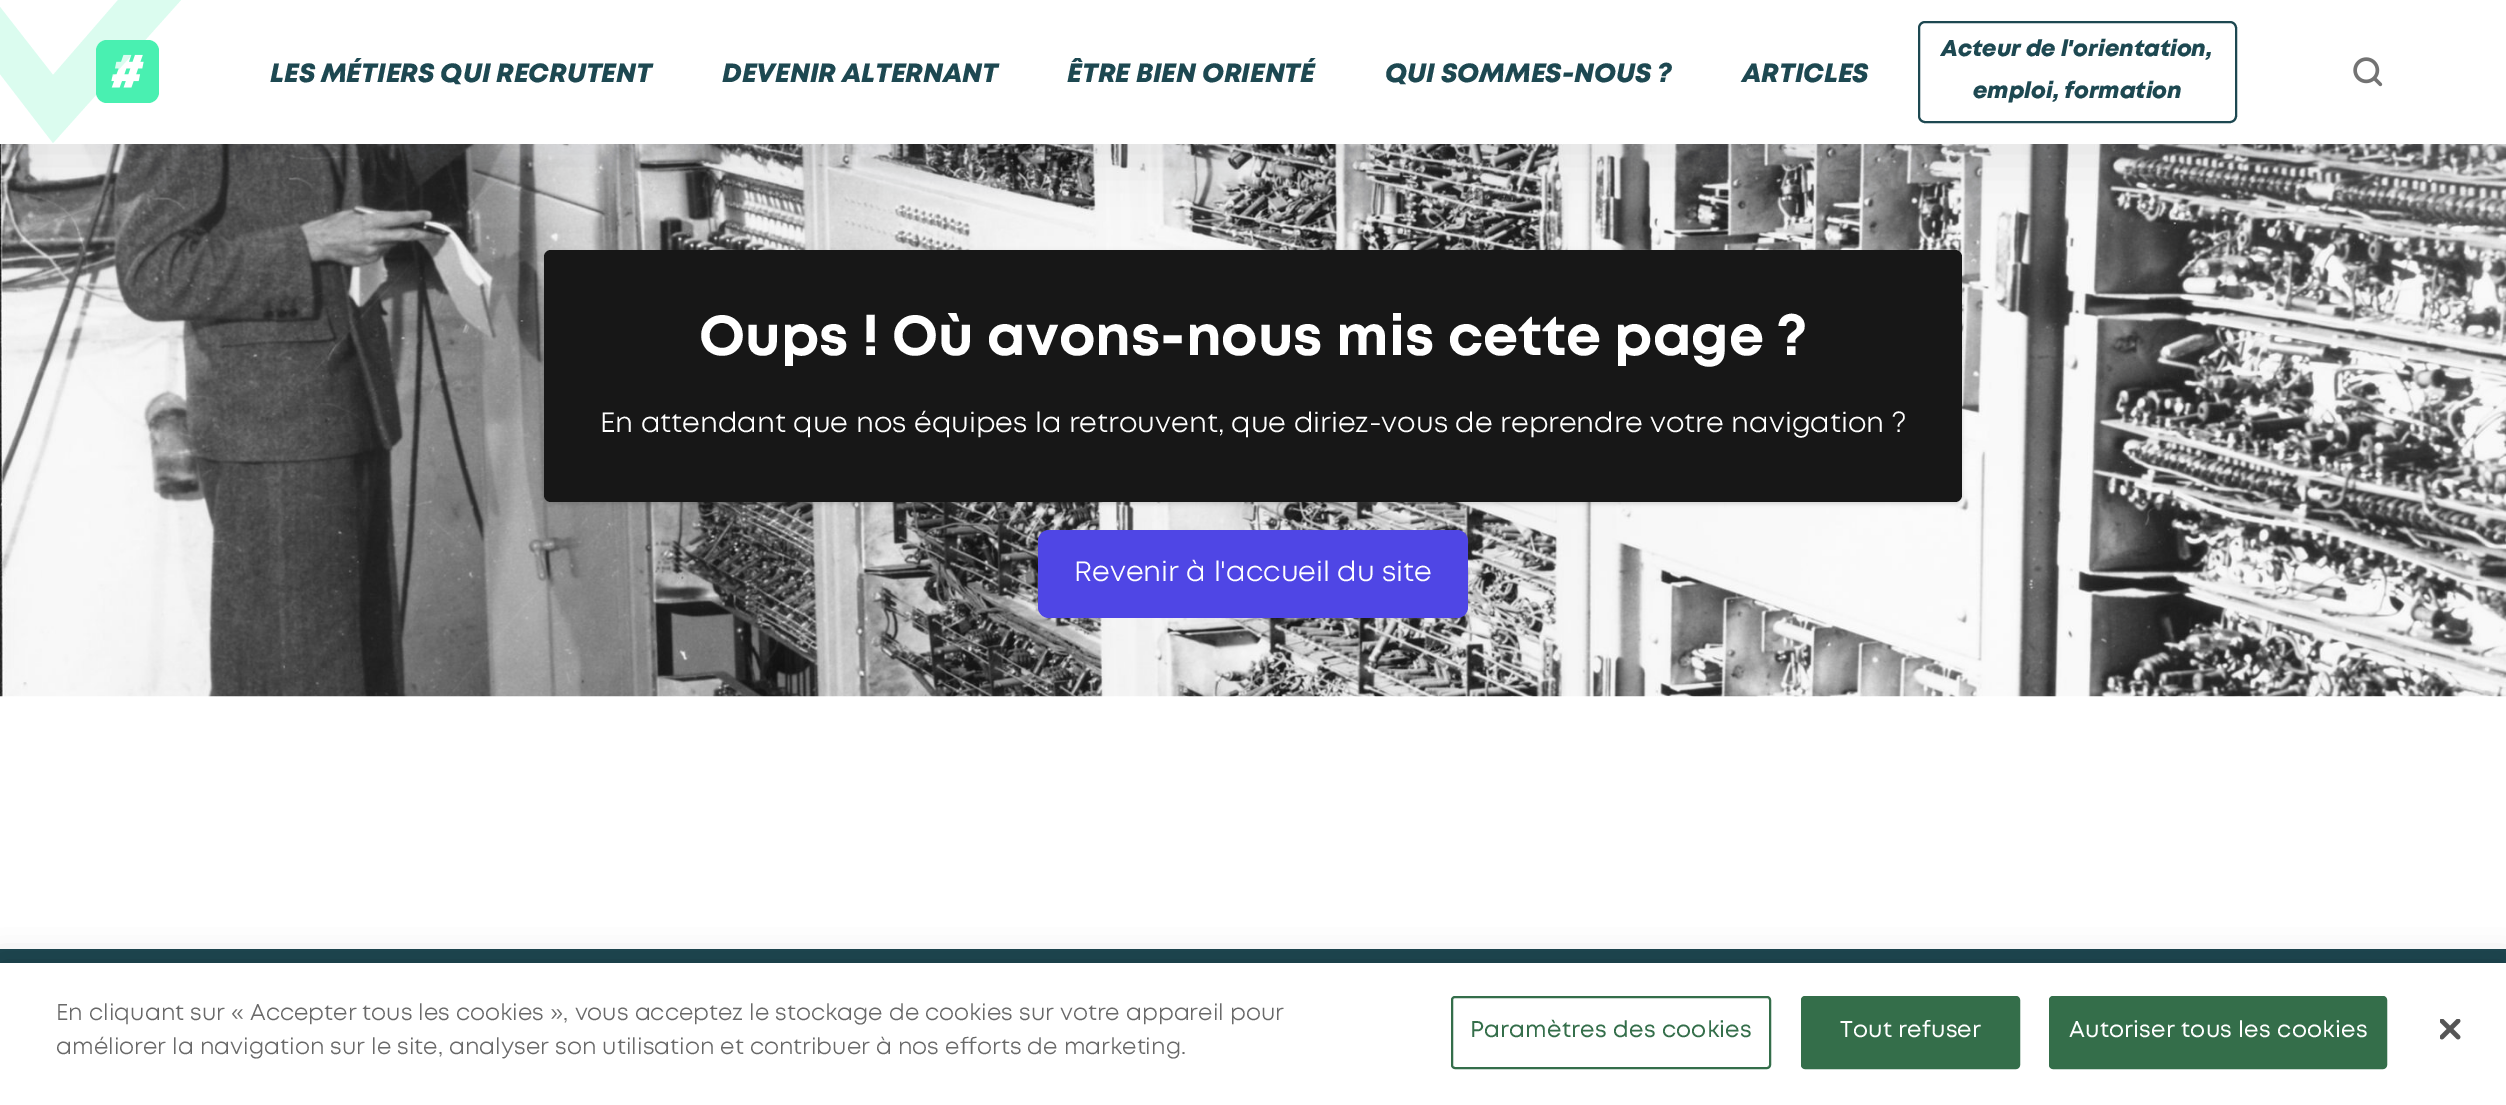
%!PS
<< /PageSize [2506 1105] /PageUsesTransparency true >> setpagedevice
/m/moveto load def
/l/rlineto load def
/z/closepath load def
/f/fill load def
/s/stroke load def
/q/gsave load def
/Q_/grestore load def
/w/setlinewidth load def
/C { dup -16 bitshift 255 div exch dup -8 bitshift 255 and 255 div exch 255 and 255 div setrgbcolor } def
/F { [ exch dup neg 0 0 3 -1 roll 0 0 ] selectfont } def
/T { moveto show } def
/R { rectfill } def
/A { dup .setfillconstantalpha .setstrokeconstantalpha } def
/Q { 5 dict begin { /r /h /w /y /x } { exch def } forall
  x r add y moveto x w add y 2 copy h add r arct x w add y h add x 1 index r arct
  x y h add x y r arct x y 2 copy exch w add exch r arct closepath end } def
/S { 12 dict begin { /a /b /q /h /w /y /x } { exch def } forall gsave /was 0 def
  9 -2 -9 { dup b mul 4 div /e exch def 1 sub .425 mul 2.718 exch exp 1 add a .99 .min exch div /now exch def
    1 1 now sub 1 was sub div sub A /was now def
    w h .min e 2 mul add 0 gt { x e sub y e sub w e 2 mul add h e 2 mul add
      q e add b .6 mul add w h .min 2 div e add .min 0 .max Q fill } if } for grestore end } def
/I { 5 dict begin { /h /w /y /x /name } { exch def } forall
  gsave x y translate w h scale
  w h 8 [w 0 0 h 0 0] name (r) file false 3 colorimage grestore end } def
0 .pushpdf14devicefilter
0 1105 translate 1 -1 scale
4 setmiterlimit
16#FFFFFF C
0 0 2506 1105 R
(3.rgb) 0 144 2506 553 I
16#1F222E C
0 18 2506 143 0 26 .1 S
16#FFFFFF C
0 0 2506 144 R
16#49F0B1 C
96 40 63 63 11 Q f
(1.rgb) 111 54 33 34 I
0.2 A
53 75 m -53 -68 l 0 67 l 53 69 l 128 -143 l -63 0 l z f
/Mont-BlackItalic 26.25 F
1 A
16#1D4851 C
(LES MÉTIERS QUI RECRUTENT) 270 82 T
(DEVENIR ALTERNANT) 722 82 T
(ÊTRE BIEN ORIENTÉ) 1067 82 T
(QUI SOMMES-NOUS ?) 1385 82 T
(ARTICLES) 1742 82 T
2 w
1919 22 317 100 6 Q s
/Mont-BlackItalic 22.75 F
(Acteur de l'orientation,) 1941 56 T
(emploi, formation) 1973 98 T
(2.rgb) 2353 57 30 30 I
16#000000 C
546 254 1414 248 5 2 .1 S
544 252 1418 252 7 2.5 .1 S
16#171717 C
544 250 1418 252 7 Q f
/Mont-Bold 56 F
16#FFFFFF C
(Oups ! Où avons-nous mis cette page ?) 699 355 T
/Mont-Regular 28 F
(En attendant que nos équipes la retrouvent, que diriez-vous de reprendre votre navigation ?) 600 432 T
16#4F46E5 C
1038 530 430 88 11 Q f
16#FFFFFF C
(Revenir à l'accueil du site) 1074 581 T
16#1D4851 C
0 949 2506 14 R
16#000000 C
0 963 2506 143 0 16 .2 S
16#FFFFFF C
0 963 2506 142 R
/Mont-Regular 22.75 F
16#696969 C
(En cliquant sur « Accepter tous les cookies », vous acceptez le stockage de cookies sur votre appareil pour) 56 1020 T
(améliorer la navigation sur le site, analyser son utilisation et contribuer à nos efforts de marketing.) 56 1054 T
16#346E4A C
1452 997 318 71 3 Q s
/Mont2-Regular 22.75 F
1470 1037 m .25 0 (Paramètres des cookies) ashow
1802 997 217 71 3 Q q f Q_
s
16#FFFFFF C
1840 1037 m .25 0 (Tout refuser) ashow
16#346E4A C
2050 997 336 71 3 Q q f Q_
s
16#FFFFFF C
2069 1037 m .25 0 (Autoriser tous les cookies) ashow
(4.rgb) 2440 1019 21 21 I
.poppdf14devicefilter showpage
